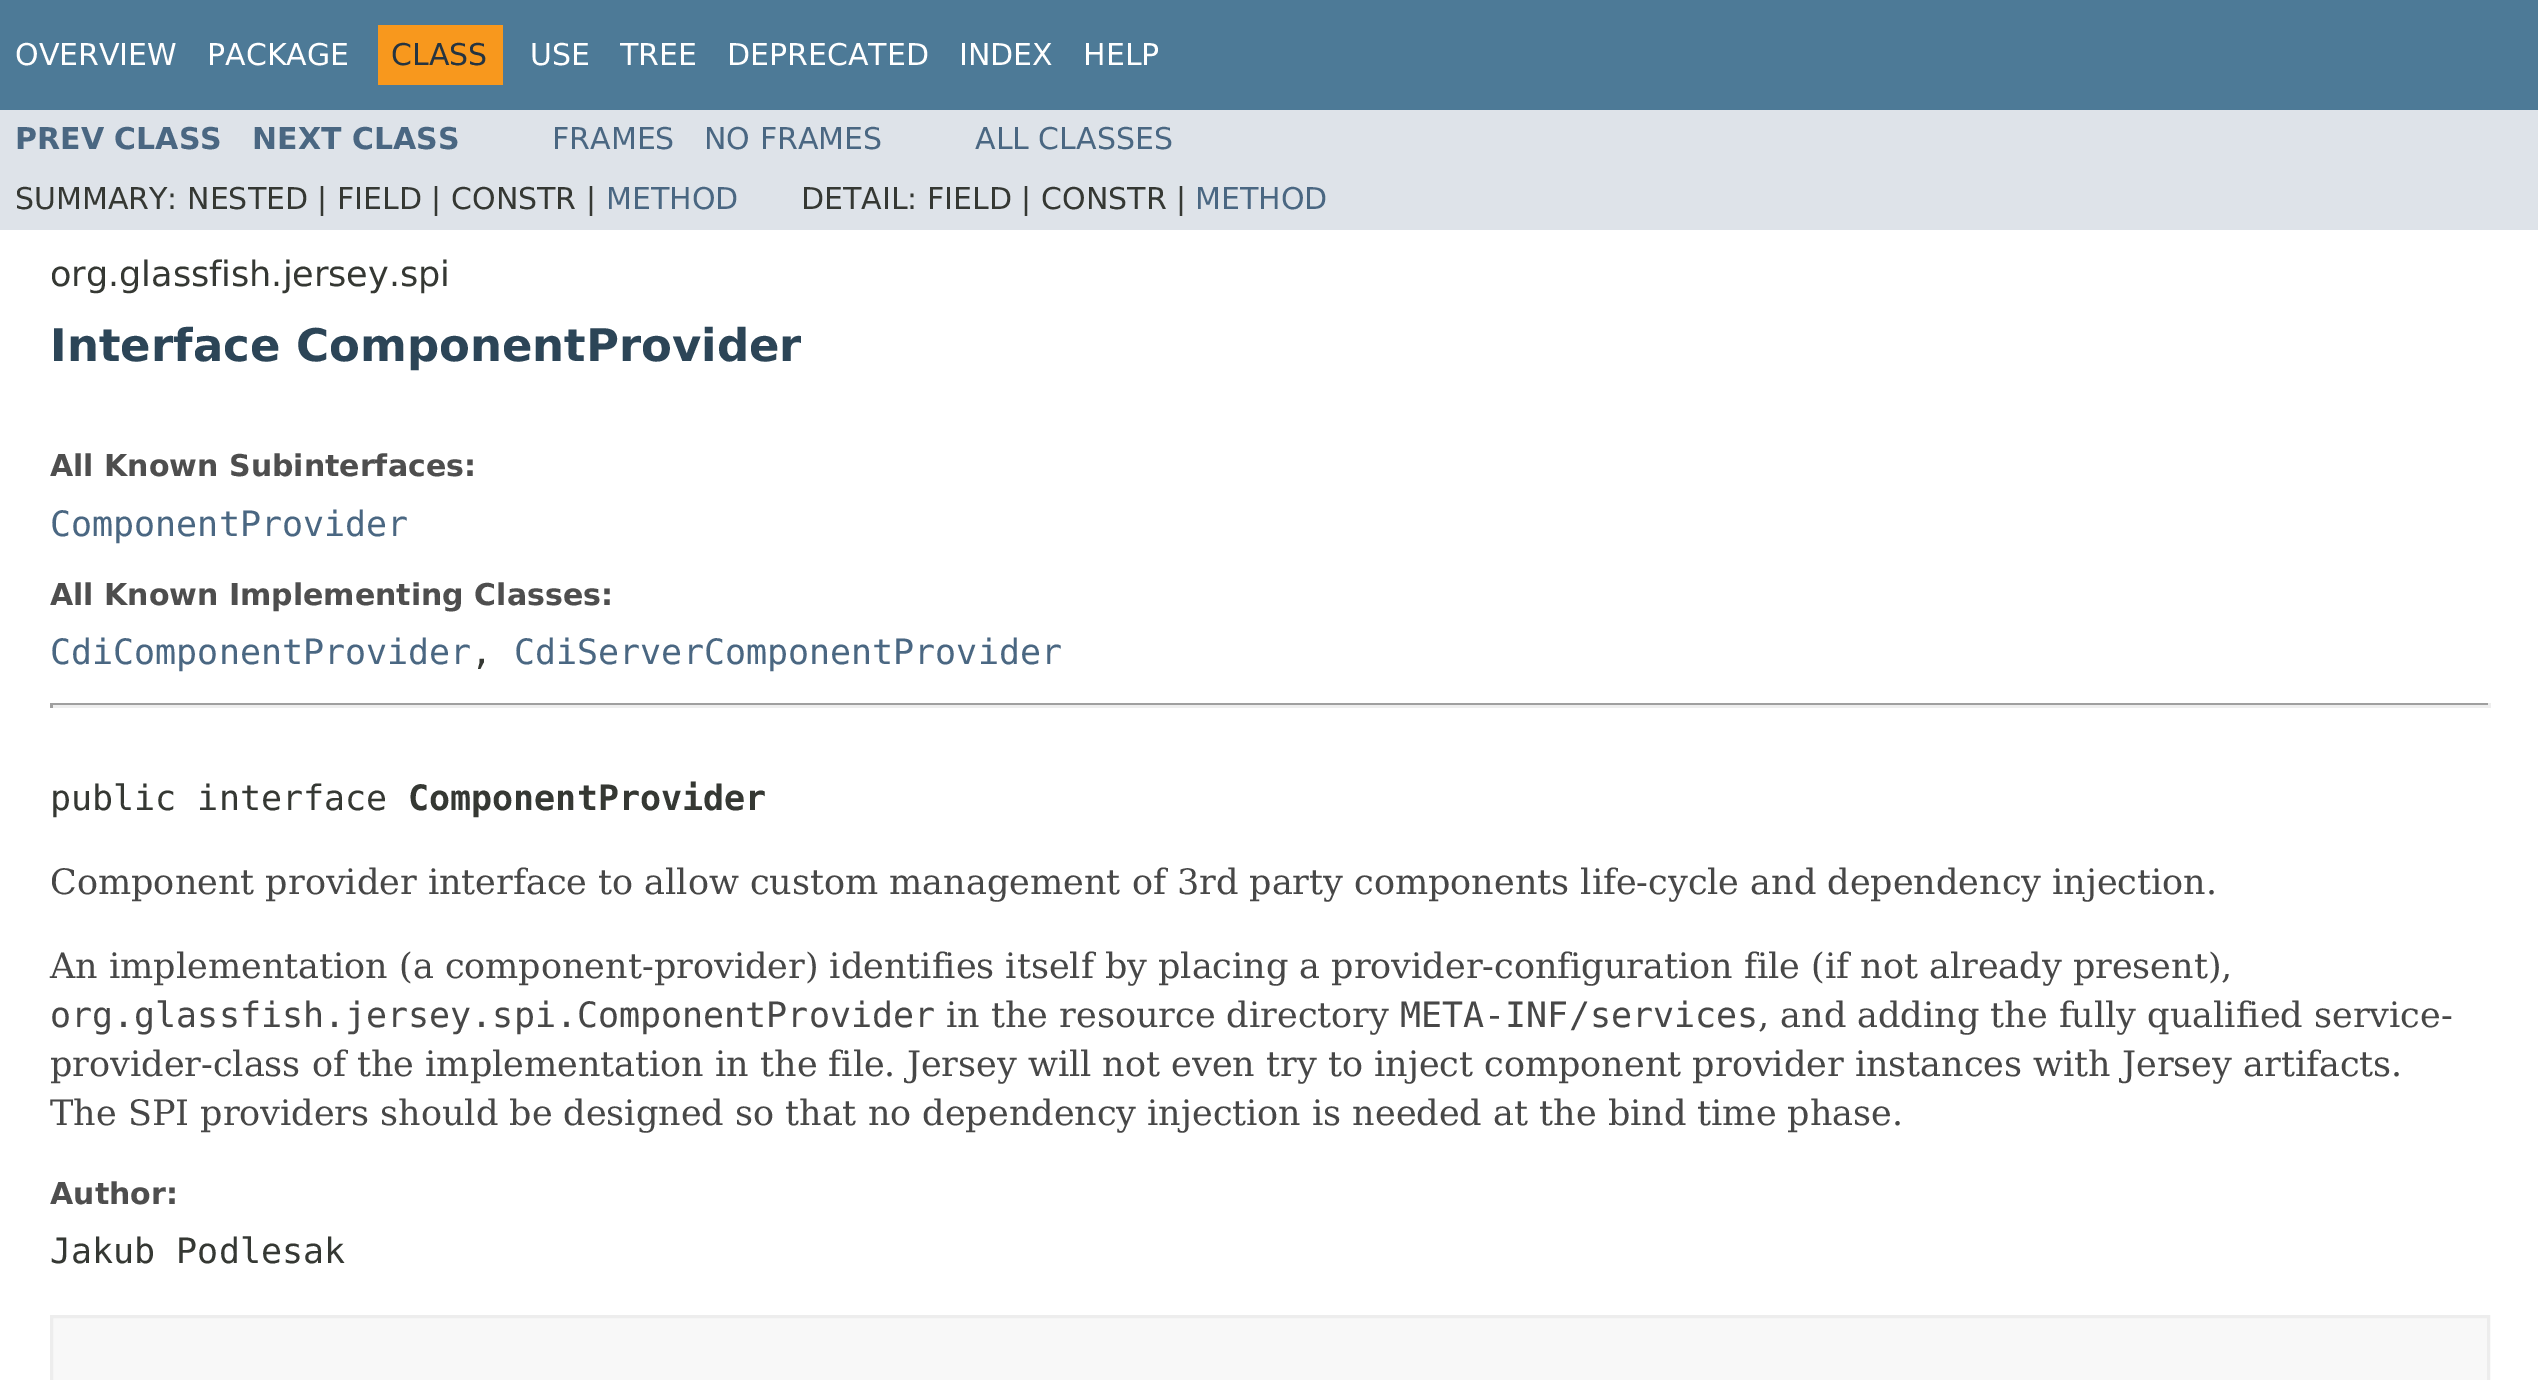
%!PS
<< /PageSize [2538 1380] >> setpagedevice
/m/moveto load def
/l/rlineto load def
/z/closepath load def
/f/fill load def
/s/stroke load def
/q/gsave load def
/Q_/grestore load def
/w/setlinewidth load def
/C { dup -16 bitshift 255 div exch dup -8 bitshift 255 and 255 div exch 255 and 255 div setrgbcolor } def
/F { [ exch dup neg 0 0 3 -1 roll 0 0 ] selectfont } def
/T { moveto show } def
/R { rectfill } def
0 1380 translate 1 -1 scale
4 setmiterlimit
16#FFFFFF C
0 0 2538 1380 R
16#4D7A97 C
0 0 2538 110 R
/DejaVuSans-Regular 30 F
16#FFFFFF C
(OVERVIEW) 15 65 T
(PACKAGE) 207 65 T
16#F8981D C
378 25 125 60 R
16#253441 C
(CLASS) 391 65 T
16#FFFFFF C
(USE) 530 65 T
(TREE) 620 65 T
(DEPRECATED) 727 65 T
(INDEX) 959 65 T
(HELP) 1083 65 T
16#DEE3E9 C
0 110 2538 120 R
/DejaVuSans-Bold 30 F
16#4A6782 C
(PREV CLASS) 15 149 T
(NEXT CLASS) 252 149 T
/DejaVuSans-Regular 30 F
(FRAMES) 552 149 T
(NO FRAMES) 704 149 T
(ALL CLASSES) 975 149 T
16#353833 C
(SUMMARY: NESTED | FIELD | CONSTR |) 15 209 T
16#4A6782 C
(METHOD) 606 209 T
16#353833 C
(DETAIL: FIELD | CONSTR |) 801 209 T
16#4A6782 C
(METHOD) 1195 209 T
/DejaVuSans-Regular 35 F
16#353833 C
(org.glassfish.jersey.spi) 50 286 T
/DejaVuSans-Bold 45 F
16#2C4557 C
(Interface ComponentProvider) 50 361 T
/DejaVuSans-Bold 30 F
16#4E4E4E C
(All Known Subinterfaces:) 50 476 T
/DejaVuSansMono-Regular 35 F
16#4A6782 C
(ComponentProvider) 50 536 T
/DejaVuSans-Bold 30 F
16#4E4E4E C
(All Known Implementing Classes:) 50 605 T
/DejaVuSansMono-Regular 35 F
16#4A6782 C
(CdiComponentProvider) 50 664 T
16#353833 C
(,) 471 664 T
16#4A6782 C
(CdiServerComponentProvider) 514 664 T
16#9F9F9F C
50 703 2440 2 R
16#EEEEEE C
2488 703 3 5 R
50 705 2440 3 R
16#9F9F9F C
50 703 3 5 R
16#353833 C
(public interface) 50 810 T
/DejaVuSansMono-Bold 35 F
(ComponentProvider) 408 810 T
/DejaVuSerif-Regular 35 F
16#474747 C
(Component provider interface to allow custom management of 3rd party components life-cycle and dependency injection.) 50 894 T
(An implementation \(a component-provider\) identifies itself by placing a provider-configuration file \(if not already present\),) 50 978 T
/DejaVuSansMono-Regular 35 F
(org.glassfish.jersey.spi.ComponentProvider) 50 1027 T
/DejaVuSerif-Regular 35 F
(in the resource directory) 946 1027 T
/DejaVuSansMono-Regular 35 F
(META-INF/services) 1400 1027 T
/DejaVuSerif-Regular 35 F
(, and adding the fully qualified service-) 1758 1027 T
(provider-class of the implementation in the file. Jersey will not even try to inject component provider instances with Jersey artifacts.) 50 1076 T
(The SPI providers should be designed so that no dependency injection is needed at the bind time phase.) 50 1125 T
/DejaVuSans-Bold 30 F
16#4E4E4E C
(Author:) 50 1204 T
/DejaVuSansMono-Regular 35 F
16#353833 C
(Jakub Podlesak) 50 1263 T
16#F8F8F8 C
51.5 1316.5 m 2437 0 l 0 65 l -2437 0 l z q f Q_
16#EDEDED C
3 w
s
showpage
